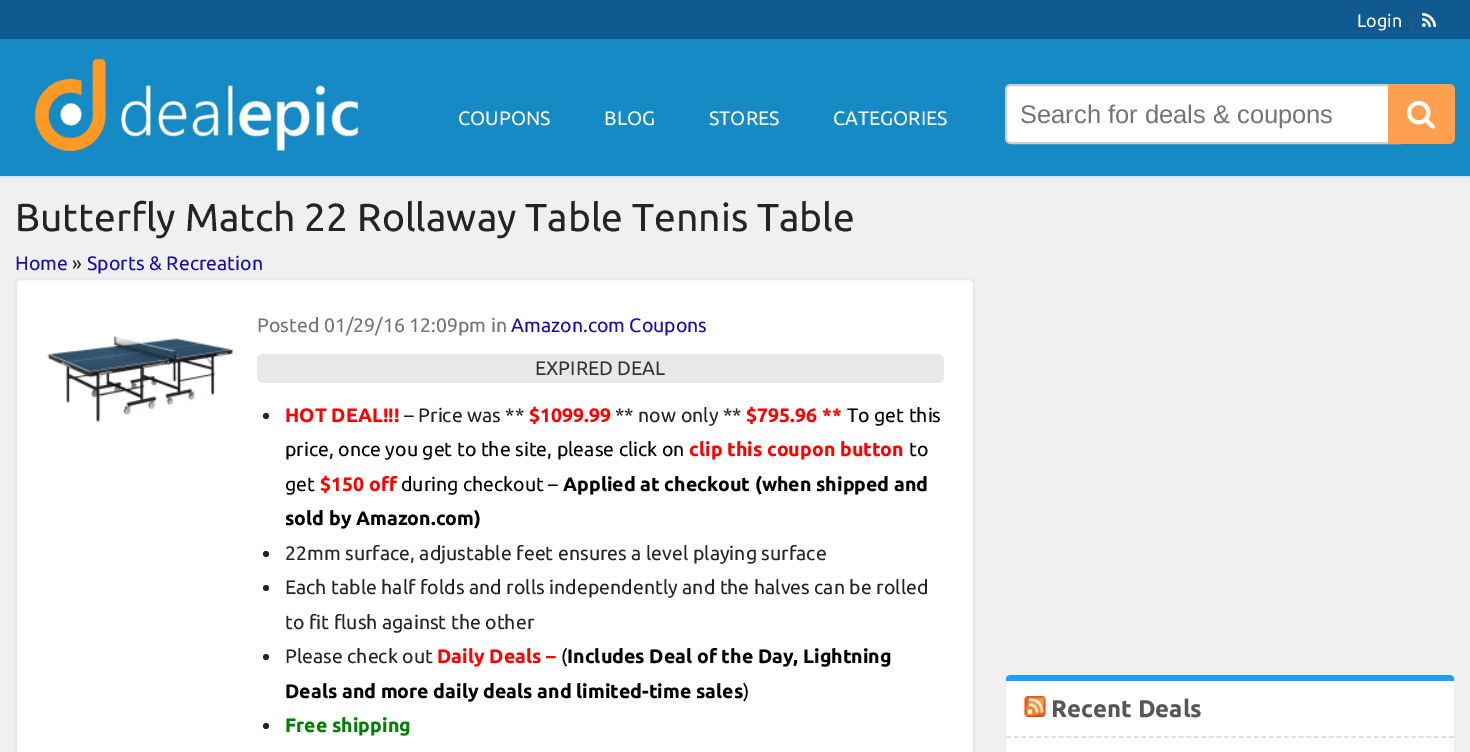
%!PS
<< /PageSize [1470 752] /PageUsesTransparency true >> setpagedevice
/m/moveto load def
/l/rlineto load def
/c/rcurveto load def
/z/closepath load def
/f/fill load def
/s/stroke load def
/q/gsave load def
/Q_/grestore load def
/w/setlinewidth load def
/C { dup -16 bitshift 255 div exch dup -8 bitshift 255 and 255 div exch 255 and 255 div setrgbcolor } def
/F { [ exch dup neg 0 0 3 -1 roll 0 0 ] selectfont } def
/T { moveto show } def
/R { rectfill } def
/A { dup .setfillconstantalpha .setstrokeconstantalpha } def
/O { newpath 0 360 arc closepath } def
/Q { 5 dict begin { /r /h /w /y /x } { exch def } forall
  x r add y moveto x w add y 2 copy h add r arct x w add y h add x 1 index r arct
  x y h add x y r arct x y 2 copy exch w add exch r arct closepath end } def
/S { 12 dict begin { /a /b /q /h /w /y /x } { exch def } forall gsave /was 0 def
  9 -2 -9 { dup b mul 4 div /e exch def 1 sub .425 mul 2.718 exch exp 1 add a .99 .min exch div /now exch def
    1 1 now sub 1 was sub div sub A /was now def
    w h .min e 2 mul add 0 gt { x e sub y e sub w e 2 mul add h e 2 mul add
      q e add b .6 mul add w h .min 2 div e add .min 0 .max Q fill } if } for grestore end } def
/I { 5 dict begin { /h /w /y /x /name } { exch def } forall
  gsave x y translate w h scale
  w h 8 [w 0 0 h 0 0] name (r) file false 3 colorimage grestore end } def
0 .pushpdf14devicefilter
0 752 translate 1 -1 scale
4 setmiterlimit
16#F0F0F0 C
0 0 1470 752 R
16#115991 C
0 0 1470 39 R
/Ubuntu-Regular 18 F
16#FFFFFF C
(Login) 1357 27 T
16#4F4F4F C
(|) 1409 27 T
(1.rgb) 1422 12 15 15 I
16#000000 C
0 41 1470 136 0 1 .1 S
16#168AC5 C
0 39 1470 137 R
(2.rgb) 34 58 325 93 I
/Ubuntu-Regular 19.5 F
16#FFFFFF C
(COUPONS) 458 125 T
(BLOG) 604 125 T
(STORES) 709 125 T
(CATEGORIES) 833 125 T
1011 85 m 389 0 l 0 58 l -389 0 l -3 0 -5 -2 -5 -5 c 0 -48 l 0 -3 2 -5 5 -5 c z q f Q_
16#D0D0D0 C
2 w
s
/LiberationSans-Regular 25.5 F
16#747474 C
(Search for deals & coupons) 1020 123 T
16#FF9F4F C
1388 84 m 61 0 l 3.5 0 6 2.5 6 6 c 0 48 l 0 3.5 -2.5 6 -6 6 c -61 0 l z f
(3.rgb) 1407 100 28 29 I
/Ubuntu-Regular 39 F
16#242424 C
(Butterfly Match 22 Rollaway Table Tennis Table) 15 231 T
/Ubuntu-Regular 19.5 F
16#1A0DAB C
(Home) 15 270 T
16#242424 C
(») 72 270 T
16#1A0DAB C
(Sports & Recreation) 87 270 T
16#FFFFFF C
16 279 958 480 5 Q q f Q_
16#E6E8F2 C
s
(4.rgb) 47 336 186 86 I
16#747474 C
(Posted 01/29/16 12:09pm in) 257 332 T
16#1A0DAB C
(Amazon.com Coupons) 511 332 T
16#E8E8E8 C
257 354 687 29 6 Q f
16#333333 C
(EXPIRED DEAL) 535 375 T
16#242424 C
266 416 3 O f
/Ubuntu-Bold 19.5 F
16#FF0000 C
(HOT DEAL!!!) 285 422 T
/Ubuntu-Regular 19.5 F
16#242424 C
(– Price was **) 404 422 T
/Ubuntu-Bold 19.5 F
16#FF0000 C
($1099.99) 529 422 T
/Ubuntu-Regular 19.5 F
16#242424 C
(** now only **) 615 422 T
/Ubuntu-Bold 19.5 F
16#FF0000 C
($795.96 **) 746 422 T
/Ubuntu-Regular 19.5 F
16#000000 C
(To get this) 847 422 T
(price, once you get to the site, please click on) 285 456 T
/Ubuntu-Bold 19.5 F
16#FF0000 C
(clip this coupon button) 689 456 T
/Ubuntu-Regular 19.5 F
16#000000 C
(to) 909 456 T
(get) 285 491 T
/Ubuntu-Bold 19.5 F
16#FF0000 C
($150 off) 320 491 T
/Ubuntu-Regular 19.5 F
16#000000 C
(during checkout –) 401 491 T
/Ubuntu-Bold 19.5 F
(Applied at checkout \(when shipped and) 563 491 T
(sold by Amazon.com\)) 285 525 T
16#242424 C
266 554 3 O f
/Ubuntu-Regular 19.5 F
(22mm surface, adjustable feet ensures a level playing surface) 285 560 T
266 588 3 O f
(Each table half folds and rolls independently and the halves can be rolled) 285 594 T
(to fit flush against the other) 285 629 T
266 657 3 O f
(Please check out) 285 663 T
/Ubuntu-Bold 19.5 F
16#FF0000 C
(Daily Deals –) 437 663 T
/Ubuntu-Regular 19.5 F
16#000000 C
(\() 561 663 T
/Ubuntu-Bold 19.5 F
(Includes Deal of the Day, Lightning) 567 663 T
(Deals and more daily deals and limited-time sales) 285 698 T
/Ubuntu-Regular 19.5 F
(\)) 743 698 T
16#242424 C
266 726 3 O f
/Ubuntu-Bold 19.5 F
16#008000 C
(Free shipping) 285 732 T
16#FFFFFF C
1011 681 m 443 0 l 0 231 l 0 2 -3 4 -5 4 c -438 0 l -2 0 -5 -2 -5 -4 c 0 -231 l z f
16#1F9DF7 C
1011 675 m -2 0 -4 1 -5 3 c 0 3 l 448 0 l 0 -3 l -1 -2 -3 -3 -5 -3 c z f
16#E6E8F2 C
1455 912 m 0 -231 l -1 -3 l 0 3 l 0 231 l 0 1 -1 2 -2 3 c 1 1 l 1 -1 2 -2 2 -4 c z f
1005 681 m 0 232 l 2 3 l 1 -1 l -1 -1 -2 -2 -2 -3 c 0 -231 l 0 -3 l z f
16#DCDCDC C
1.5 w
[4.5 3] 0 setdash
1006.5 737 m 447 0 l s
(5.rgb) 1024 696 22 21 I
/Ubuntu-Bold 24 F
16#555655 C
(Recent Deals) 1051 717 T
.poppdf14devicefilter showpage
